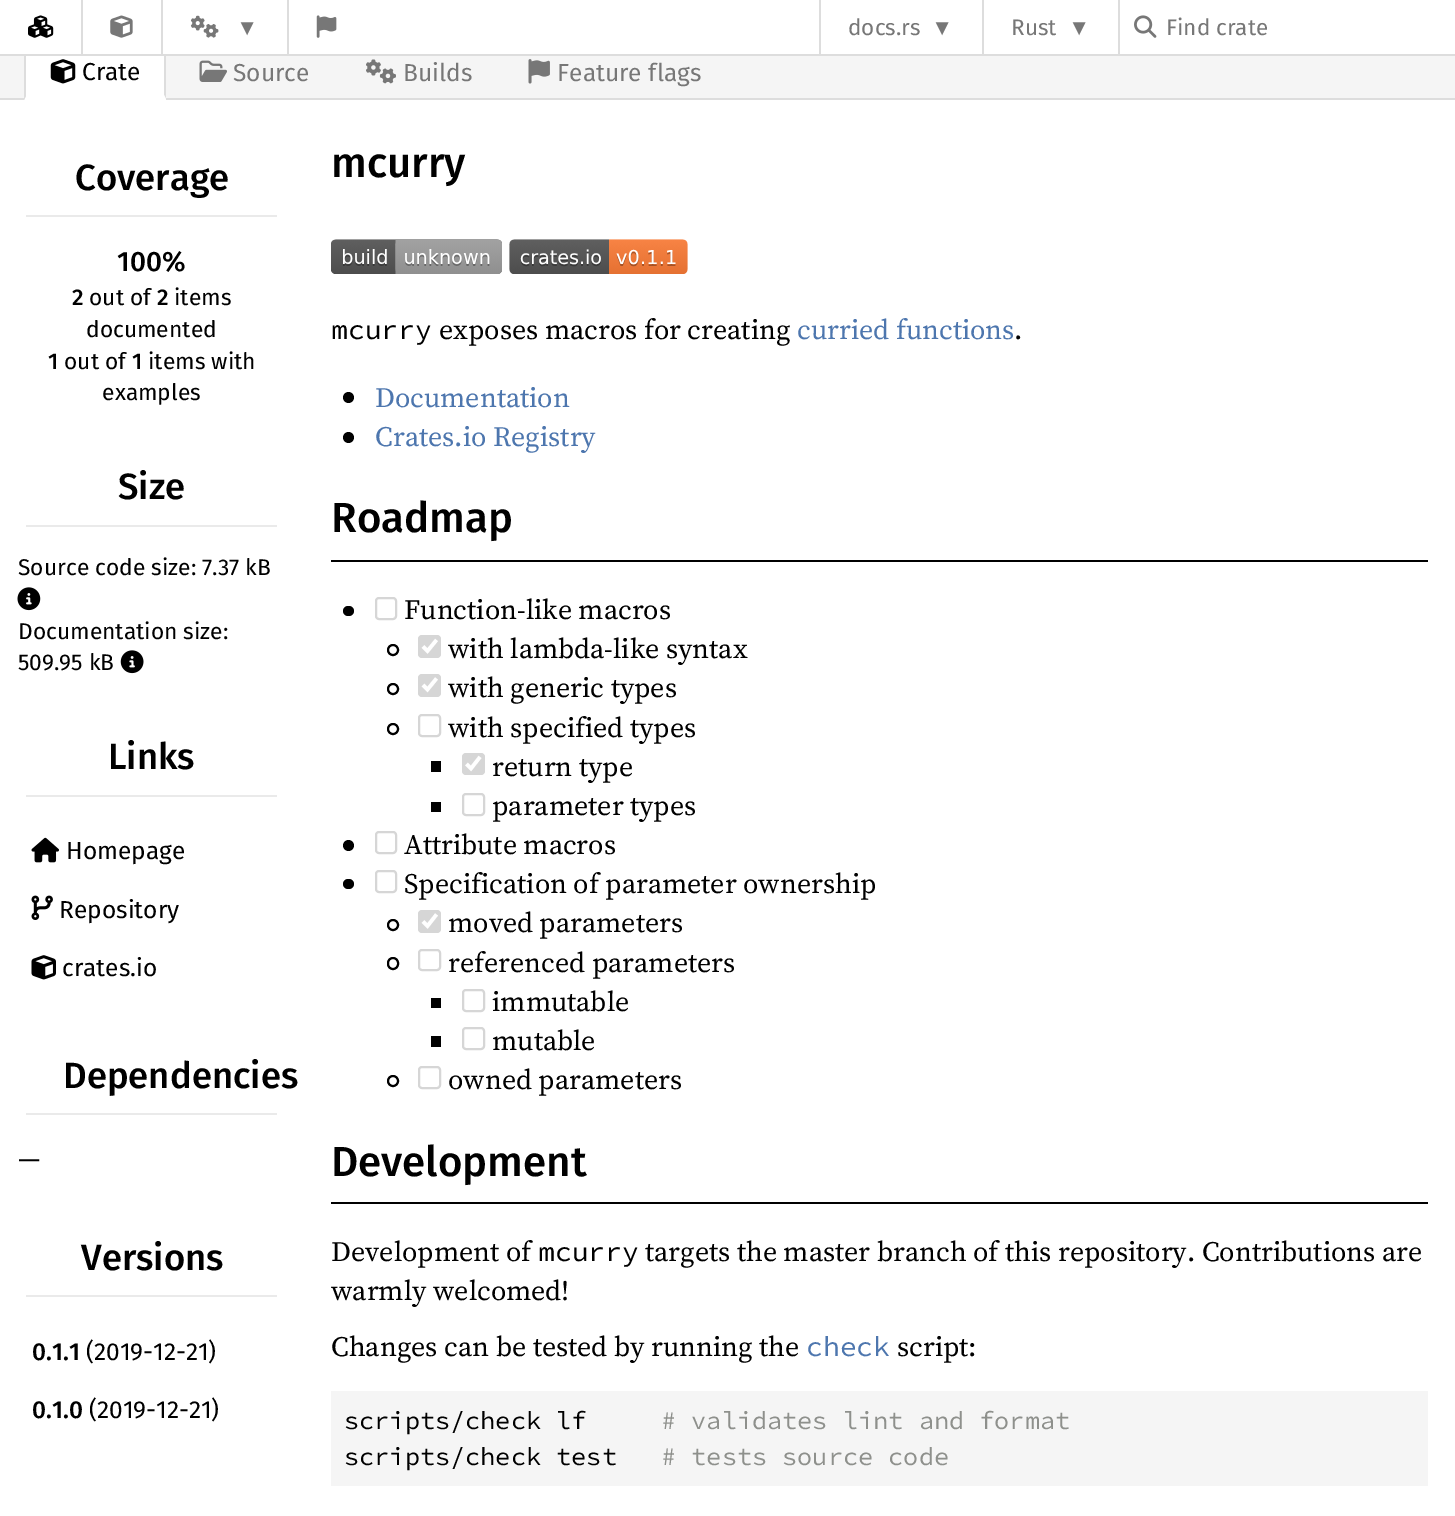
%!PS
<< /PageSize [1455 1516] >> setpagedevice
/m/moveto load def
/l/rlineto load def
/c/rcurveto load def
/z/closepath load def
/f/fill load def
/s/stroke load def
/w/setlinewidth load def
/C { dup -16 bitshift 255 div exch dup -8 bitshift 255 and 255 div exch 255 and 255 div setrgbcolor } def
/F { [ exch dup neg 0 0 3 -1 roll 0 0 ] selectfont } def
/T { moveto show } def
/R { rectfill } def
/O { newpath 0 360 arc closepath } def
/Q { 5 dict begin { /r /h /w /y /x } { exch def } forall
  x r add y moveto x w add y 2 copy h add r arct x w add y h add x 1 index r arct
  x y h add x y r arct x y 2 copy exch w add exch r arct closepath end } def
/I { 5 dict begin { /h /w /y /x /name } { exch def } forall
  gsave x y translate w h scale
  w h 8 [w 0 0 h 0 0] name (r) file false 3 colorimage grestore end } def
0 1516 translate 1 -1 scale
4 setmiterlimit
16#FFFFFF C
0 0 1455 1516 R
16#F5F5F5 C
0 56 1455 42 R
16#DDDDDD C
0 98 1455 2 R
16#FFFFFF C
26 56 139 40 R
16#DDDDDD C
166 99 m 0 -48 l 0 -2 -1 -4 -2 -5 c -1 1 l 1 1 1 3 1 4 c 0 44 l z f
16#FFFFFF C
166 99 m 0 1 l -142 0 l 2 -4 l 138 0 l 0 -1 l z f
16#DDDDDD C
24 100 m 2 -4 l 0 -45 l 0 -2 1 -3 2 -4 c -1 -1 l -3 3 l z f
16#FFFFFF C
24 46 142 8 R
16#DDDDDD C
0 54 1455 2 R
(1.rgb) 28 15 26 23 I
81 0 2 54 R
(2.rgb) 110 15 23 23 I
161 0 2 54 R
(3.rgb) 190 15 29 23 I
/LiberationSans-Regular 22.5 F
16#777777 C
(▼) 236 35 T
16#DDDDDD C
287 0 2 54 R
(4.rgb) 316 15 21 23 I
819 0 2 54 R
/FiraSans-Regular 22.5 F
16#777777 C
(docs.rs) 848 35 T
/LiberationSans-Regular 22.5 F
(▼) 931 35 T
16#DDDDDD C
982 0 2 54 R
/FiraSans-Regular 22.5 F
16#777777 C
(Rust) 1011 35 T
/LiberationSans-Regular 22.5 F
(▼) 1068 35 T
16#DDDDDD C
1118 0 2 54 R
(5.rgb) 1134 15 23 23 I
/FiraSans-Regular 22.5 F
16#777777 C
(Find crate) 1166 35 T
(6.rgb) 50 59 26 25 I
/FiraSans-Regular 24.5 F
16#000000 C
(Crate) 82 80 T
(7.rgb) 199 60 28 22 I
16#777777 C
(Source) 233 81 T
(8.rgb) 366 59 30 25 I
(Builds) 403 81 T
(9.rgb) 528 59 22 25 I
(Feature flags) 557 81 T
16#EAEAEA C
26 215 251 2 R
/FiraSans-Medium 36.5 F
16#000000 C
(Coverage) 75 190 T
/FiraSans-Medium 28 F
(100%) 117 271 T
/FiraSans-Medium 22.75 F
(2) 72 305 T
/FiraSans-Regular 22.75 F
(out of) 89 305 T
/FiraSans-Medium 22.75 F
(2) 157 305 T
/FiraSans-Regular 22.75 F
(items) 174 305 T
(documented) 86 337 T
/FiraSans-Medium 22.75 F
(1) 48 369 T
/FiraSans-Regular 22.75 F
(out of) 64 369 T
/FiraSans-Medium 22.75 F
(1) 132 369 T
/FiraSans-Regular 22.75 F
(items with) 148 369 T
(examples) 102 400 T
16#EAEAEA C
26 525 251 2 R
/FiraSans-Medium 36.5 F
16#000000 C
(Size) 118 499 T
/FiraSans-Regular 22.75 F
(Source code size: 7.37 kB) 18 575 T
(10.rgb) 17 587 24 24 I
(Documentation size:) 18 639 T
(509.95 kB) 18 670 T
(11.rgb) 120 650 24 24 I
16#EAEAEA C
26 795 251 2 R
/FiraSans-Medium 36.5 F
16#000000 C
(Links) 108 769 T
(12.rgb) 31 837 28 26 I
/FiraSans-Regular 24.5 F
(Homepage) 66 859 T
(13.rgb) 31 895 22 25 I
(Repository) 59 918 T
(14.rgb) 31 955 25 25 I
(crates.io) 62 976 T
16#EAEAEA C
26 1113 251 2 R
/FiraSans-Medium 36.5 F
16#000000 C
(Dependencies) 63 1088 T
/FiraSans-Regular 28 F
(—) 18 1169 T
16#EAEAEA C
26 1295 251 2 R
/FiraSans-Medium 36.5 F
16#000000 C
(Versions) 81 1270 T
/FiraSans-Medium 24.5 F
(0.1.1) 32 1360 T
/FiraSans-Regular 24.5 F
(\(2019-12-21\)) 86 1360 T
/FiraSans-Medium 24.5 F
(0.1.0) 32 1418 T
/FiraSans-Regular 24.5 F
(\(2019-12-21\)) 89 1418 T
/FiraSans-Medium 42 F
(mcurry) 331 177 T
(15.rgb) 331 239 171 35 I
(16.rgb) 509 239 179 35 I
/SourceCodePro-Regular 28 F
(mcurry) 331 339 T
/SourceSerif4-Regular 28 F
(exposes macros for creating) 439 339 T
16#4D76AE C
(curried functions) 797 339 T
16#000000 C
(.) 1014 339 T
348.5 397.5 5.5 O f
16#4D76AE C
(Documentation) 375 407 T
16#000000 C
348.5 437.5 5.5 O f
16#4D76AE C
(Crates.io Registry) 375 446 T
16#000000 C
331 560 1097 2 R
/FiraSans-Medium 42 F
(Roadmap) 331 532 T
343 606 11 10 5 Q f
16#D6D6D6 C
2 w
376 598 20 21 3 Q s
/SourceSerif4-Regular 28 F
16#000000 C
(Function-like macros) 404 619 T
393 650 5 O s
16#D6D6D6 C
418 635 23 23 4 Q f
16#FFFFFF C
3.6 w
423 646.5 m 4.5 4.5 l 9 -11 l s
16#000000 C
(with lambda-like syntax) 448 658 T
2 w
393 689 5 O s
16#D6D6D6 C
418 674 23 23 4 Q f
16#FFFFFF C
3.6 w
423 685 m 4.5 4.5 l 9 -11 l s
16#000000 C
(with generic types) 448 697 T
2 w
393 729 5 O s
16#D6D6D6 C
419 715 21 21 3 Q s
16#000000 C
(with specified types) 448 737 T
431 761 10 11 R
16#D6D6D6 C
462 753 23 22 4 Q f
16#FFFFFF C
3.6 w
466.5 764 m 4.5 4.5 l 9 -11.5 l s
16#000000 C
(return type) 492 776 T
431 802 10 10 R
16#D6D6D6 C
2 w
463 794 21 21 3 Q s
16#000000 C
(parameter types) 492 815 T
348.5 845.5 5.5 O f
16#D6D6D6 C
376 832 20 21 3 Q s
16#000000 C
(Attribute macros) 404 854 T
343 879 11 10 5 Q f
16#D6D6D6 C
376 871 20 21 3 Q s
16#000000 C
(Specification of parameter ownership) 404 893 T
393 925 5 O s
16#D6D6D6 C
418 910 23 23 4 Q f
16#FFFFFF C
3.6 w
423 921.5 m 4.5 4.5 l 9 -11.5 l s
16#000000 C
(moved parameters) 448 932 T
2 w
388 958 10 11 5 Q s
16#D6D6D6 C
419 950 21 20 3 Q s
16#000000 C
(referenced parameters) 448 972 T
431 998 10 10 R
16#D6D6D6 C
463 990 21 21 3 Q s
16#000000 C
(immutable) 492 1011 T
431 1036 10 11 R
16#D6D6D6 C
463 1028 21 21 3 Q s
16#000000 C
(mutable) 492 1050 T
393 1081 5 O s
16#D6D6D6 C
419 1067 21 21 3 Q s
16#000000 C
(owned parameters) 448 1089 T
331 1202 1097 2 R
/FiraSans-Medium 42 F
(Development) 331 1176 T
/SourceSerif4-Regular 28 F
(Development of) 331 1261 T
/SourceCodePro-Regular 28 F
(mcurry) 538 1261 T
/SourceSerif4-Regular 28 F
(targets the master branch of this repository. Contributions are) 645 1261 T
(warmly welcomed!) 331 1300 T
(Changes can be tested by running the) 331 1356 T
/SourceCodePro-Regular 28 F
16#4D76AE C
(check) 806 1356 T
/SourceSerif4-Regular 28 F
16#000000 C
(script:) 897 1356 T
16#F5F5F5 C
331 1391 1097 95 R
/SourceCodePro-Regular 25.25 F
16#000000 C
(scripts/check lf) 344 1429 T
16#8E908C C
(# validates lint and format) 661 1429 T
16#000000 C
(scripts/check test) 344 1465 T
16#8E908C C
(# tests source code) 661 1465 T
showpage
